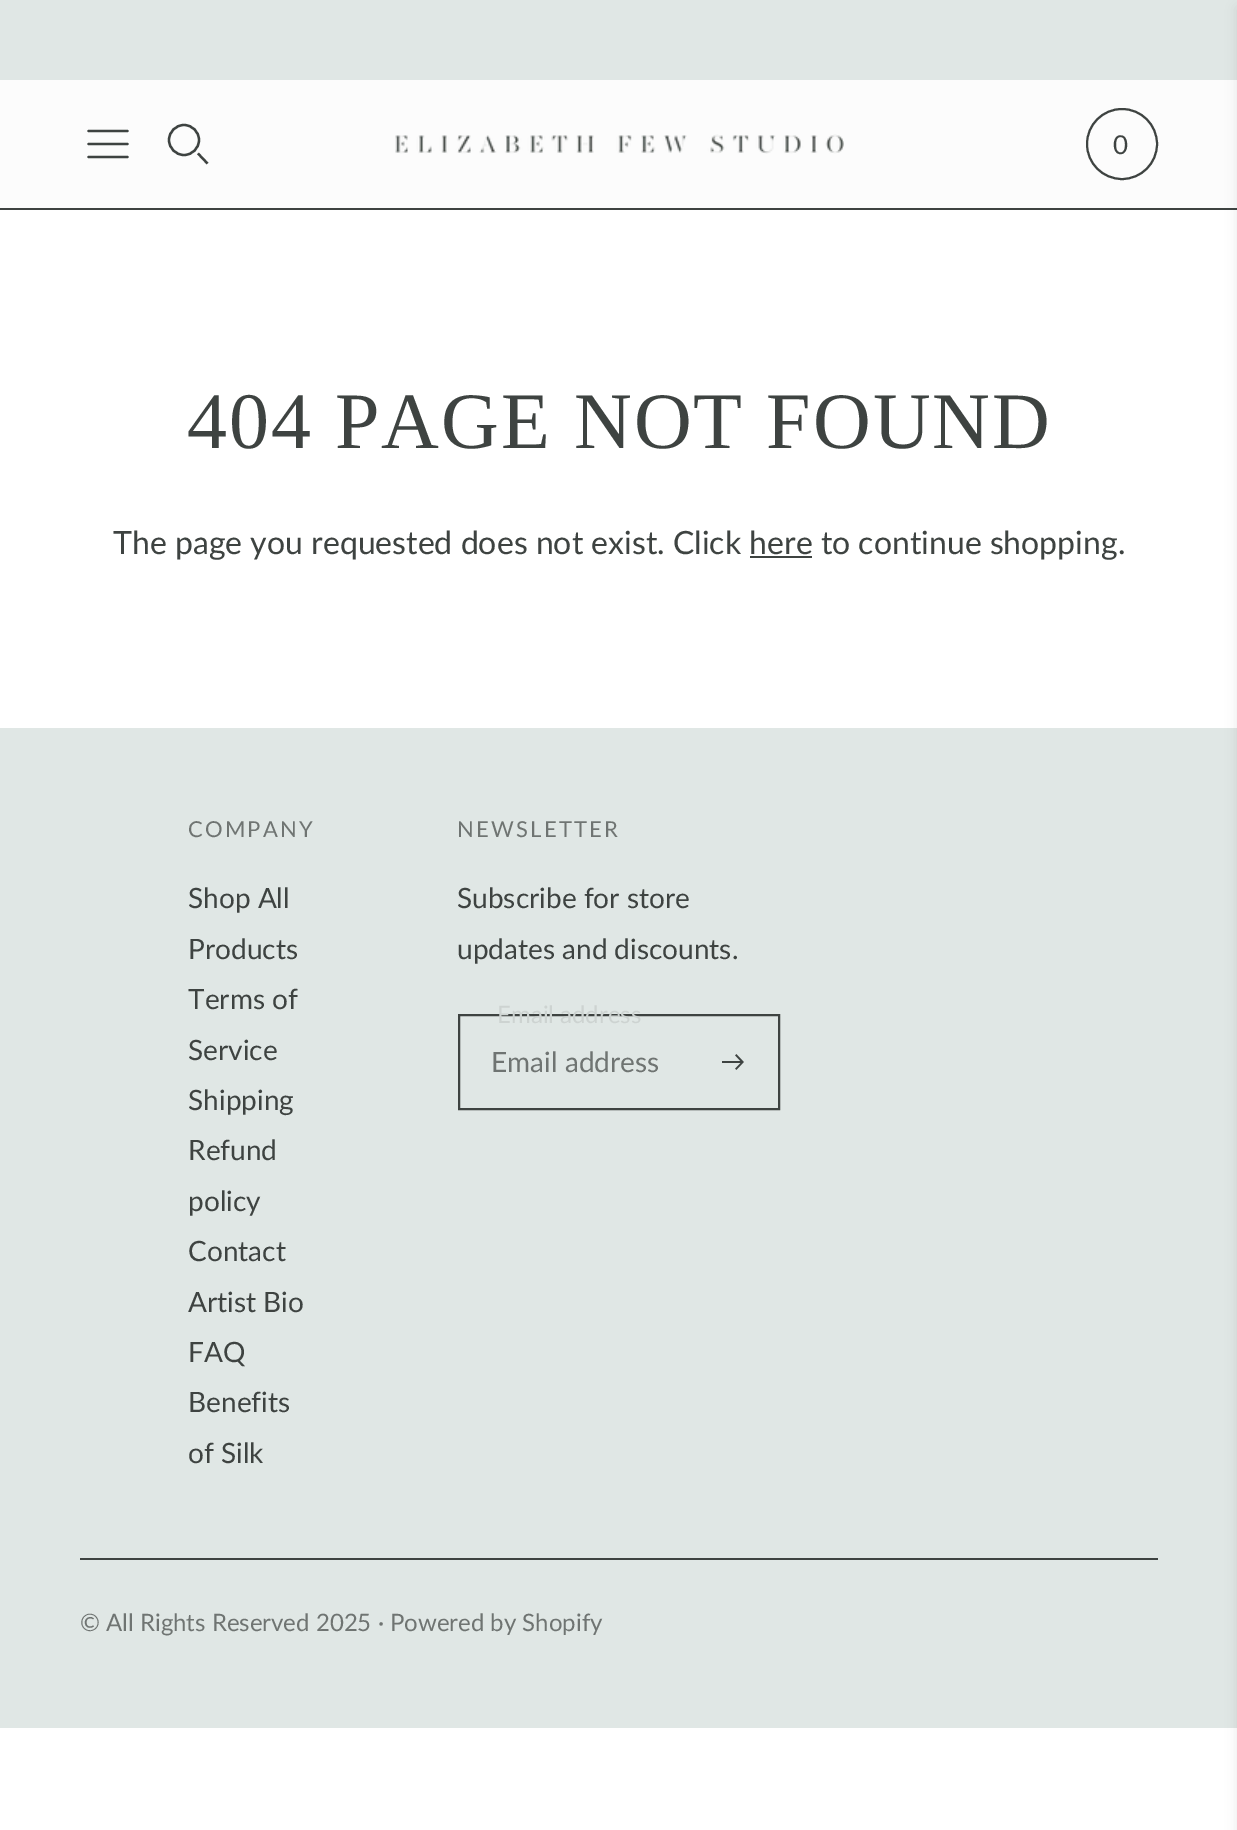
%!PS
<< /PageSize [1237 1830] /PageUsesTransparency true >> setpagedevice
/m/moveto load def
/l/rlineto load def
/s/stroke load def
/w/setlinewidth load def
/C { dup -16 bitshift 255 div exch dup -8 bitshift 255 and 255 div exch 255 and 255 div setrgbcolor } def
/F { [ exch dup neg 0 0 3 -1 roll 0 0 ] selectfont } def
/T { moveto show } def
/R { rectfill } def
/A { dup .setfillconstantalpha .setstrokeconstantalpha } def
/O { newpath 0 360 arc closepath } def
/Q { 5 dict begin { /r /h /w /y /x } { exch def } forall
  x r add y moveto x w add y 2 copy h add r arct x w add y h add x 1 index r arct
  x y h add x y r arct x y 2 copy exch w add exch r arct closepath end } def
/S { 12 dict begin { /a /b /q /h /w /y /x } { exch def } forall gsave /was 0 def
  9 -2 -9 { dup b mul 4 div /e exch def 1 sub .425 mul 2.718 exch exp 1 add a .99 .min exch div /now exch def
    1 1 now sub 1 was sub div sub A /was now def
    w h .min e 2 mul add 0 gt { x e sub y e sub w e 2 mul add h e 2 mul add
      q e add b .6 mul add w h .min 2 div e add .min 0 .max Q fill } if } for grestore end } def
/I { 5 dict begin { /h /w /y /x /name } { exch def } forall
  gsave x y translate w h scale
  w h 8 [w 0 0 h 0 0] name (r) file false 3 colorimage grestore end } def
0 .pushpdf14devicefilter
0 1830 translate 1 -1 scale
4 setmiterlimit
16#FFFFFF C
0 0 1237 1830 R
16#E0E7E5 C
0 0 1237 80 R
16#FCFCFC C
0 80 1237 128 R
16#3E4341 C
0 208 1237 2 R
2.3 w
1 setlinecap
1 setlinejoin
88.5 144 m 39 0 l 88.5 131 m 39 0 l 88.5 157 m 39 0 l s
0 setlinecap
0 setlinejoin
184 140 15 O s
198 153.5 m 9.5 10 l s
(1.rgb) 395 134 449 20 I
2 w
1122 144 35 O s
/Lato-Regular 26 F
1113 154 m 2 0 (0) ashow
16#E0E7E5 C
0 728 1237 1000 R
16#000000 C
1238 8 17 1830 0 6 .1 S
/LiberationSerif-Regular 80 F
16#3E4341 C
187 448 m 2 0 (404 PAGE NOT FOUND) ashow
/Lato-Regular 32 F
(The page you requested does not exist. Click here to continue shopping.) 113 554 T
750 556 62 2 R
/Lato-Regular 22 F
16#6F7472 C
188 837 m 2.25 0 (COMPANY) ashow
/Lato-Regular 28 F
16#3E4341 C
(Shop All) 188 908 T
(Products) 188 959 T
(Terms of) 188 1009 T
(Service) 188 1060 T
(Shipping) 188 1110 T
(Refund) 188 1160 T
(policy) 188 1211 T
(Contact) 188 1261 T
(Artist Bio) 188 1312 T
(FAQ) 188 1362 T
(Benefits) 188 1412 T
(of Silk) 188 1463 T
/Lato-Regular 22 F
16#6F7472 C
457 837 m 2.25 0 (NEWSLETTER) ashow
/Lato-Regular 28 F
16#3E4341 C
(Subscribe for store) 457 908 T
(updates and discounts.) 457 959 T
459 1015 320 94 rectstroke
/Lato-Regular 24 F
16#CDD3D1 C
(Email address) 497 1023 T
/Lato-Regular 28 F
16#6F7472 C
(Email address) 491 1072 T
(2.rgb) 722 1054 22 16 I
16#3E4341 C
80 1558 1078 2 R
/Lato-Regular 24 F
16#6F7472 C
(© All Rights Reserved 2025 · Powered by Shopify) 80 1631 T
.poppdf14devicefilter showpage
